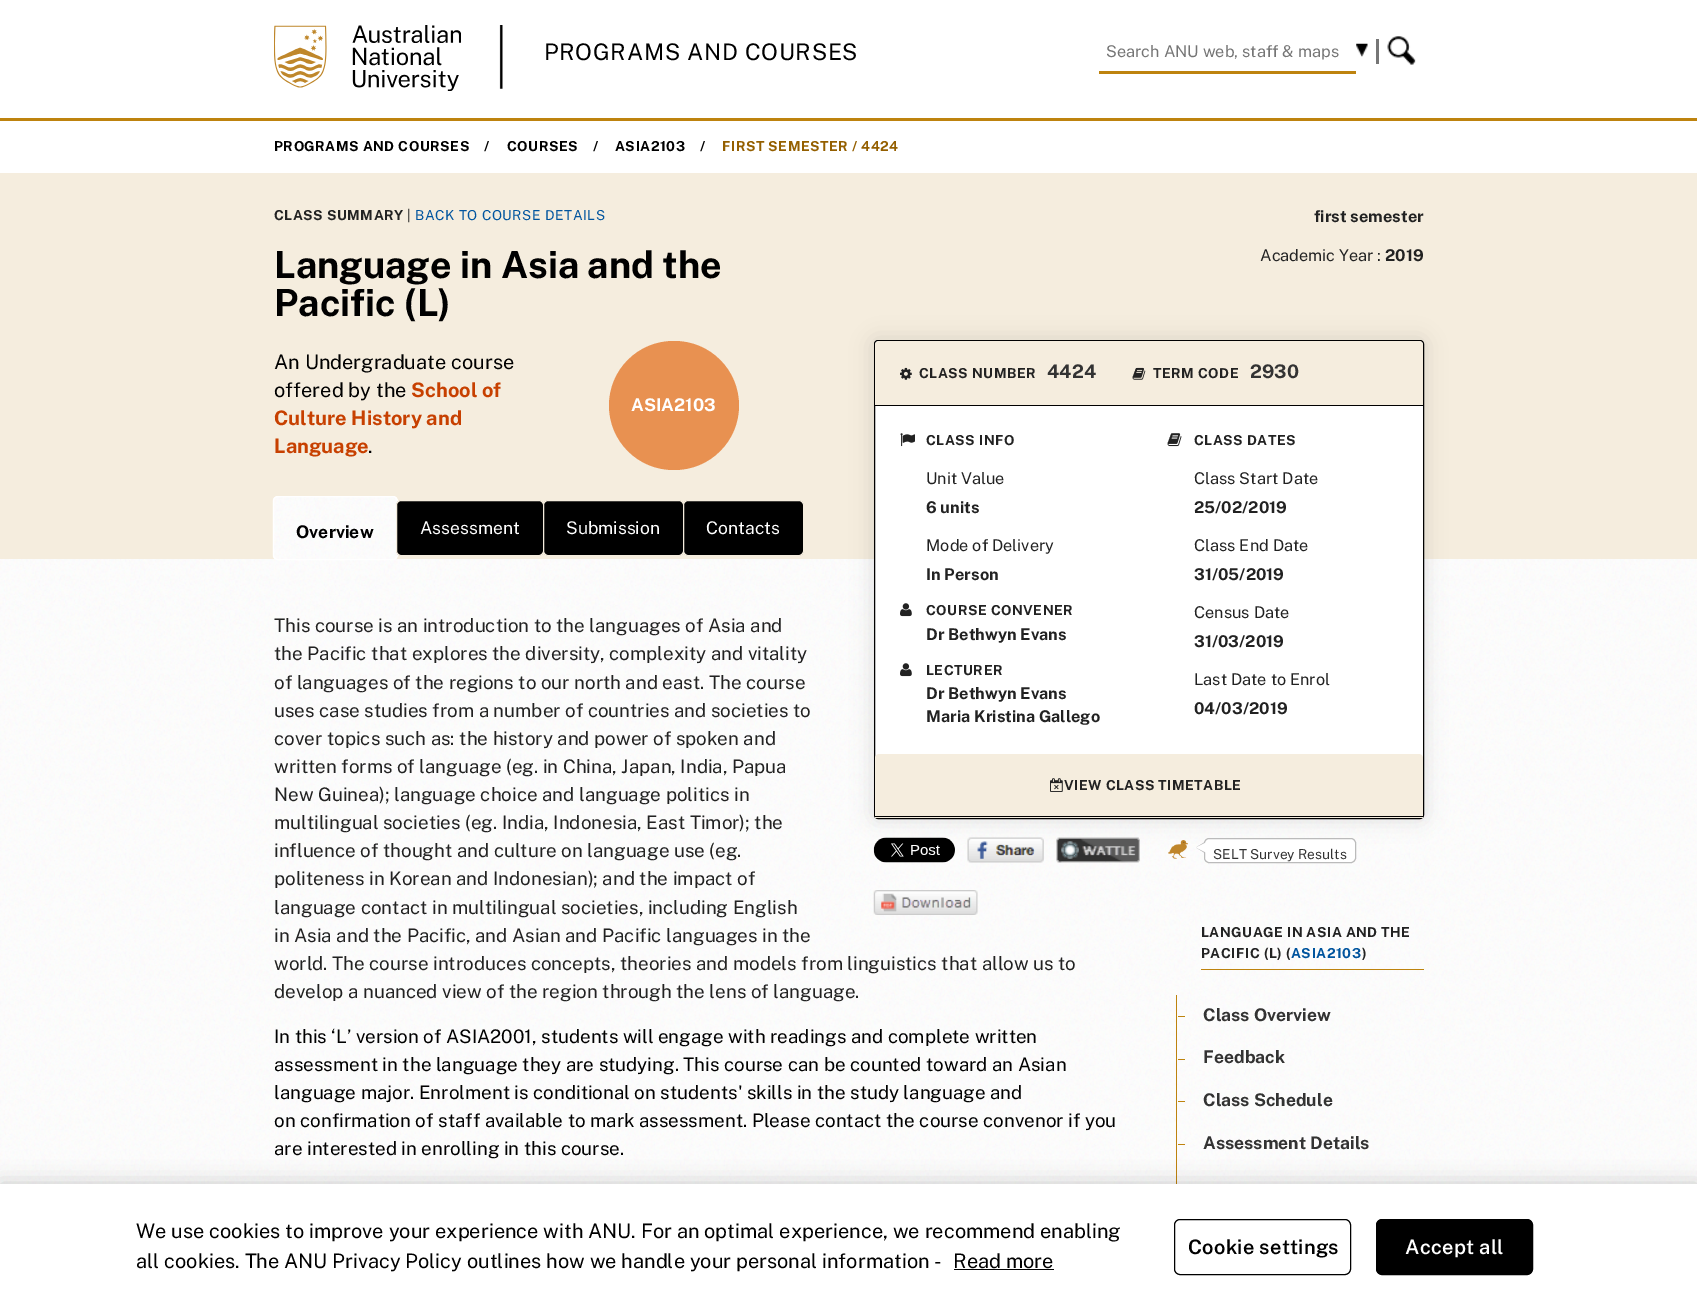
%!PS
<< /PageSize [1697 1310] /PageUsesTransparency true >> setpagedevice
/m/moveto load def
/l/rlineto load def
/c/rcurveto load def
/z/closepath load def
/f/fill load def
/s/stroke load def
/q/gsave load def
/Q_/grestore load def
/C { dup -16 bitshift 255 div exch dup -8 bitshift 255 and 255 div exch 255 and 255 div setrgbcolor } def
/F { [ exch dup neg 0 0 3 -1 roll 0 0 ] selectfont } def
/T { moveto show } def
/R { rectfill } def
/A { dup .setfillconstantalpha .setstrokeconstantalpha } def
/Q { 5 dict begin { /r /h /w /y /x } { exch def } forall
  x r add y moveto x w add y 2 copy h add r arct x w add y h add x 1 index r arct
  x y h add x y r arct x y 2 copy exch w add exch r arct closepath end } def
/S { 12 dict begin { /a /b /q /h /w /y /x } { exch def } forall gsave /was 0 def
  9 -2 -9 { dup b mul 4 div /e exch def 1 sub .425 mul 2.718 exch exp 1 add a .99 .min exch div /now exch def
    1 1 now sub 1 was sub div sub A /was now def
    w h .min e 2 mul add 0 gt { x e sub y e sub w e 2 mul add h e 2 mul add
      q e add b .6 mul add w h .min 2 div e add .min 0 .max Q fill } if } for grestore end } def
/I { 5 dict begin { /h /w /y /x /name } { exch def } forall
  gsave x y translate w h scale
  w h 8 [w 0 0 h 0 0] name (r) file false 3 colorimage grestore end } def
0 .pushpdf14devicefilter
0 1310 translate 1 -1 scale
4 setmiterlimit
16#FFFFFF C
0 0 1697 1310 R
16#BE830E C
0 118 1697 3 R
(1.rgb) 274 25 187 66 I
(2.rgb) 499 25 4 64 I
/PublicSans-Regular 22.9 F
16#000000 C
544 60 m .7 0 (PROGRAMS AND COURSES) ashow
16#BE830E C
1099 71 257 3 R
/PublicSans-Regular 16.25 F
16#757575 C
(Search ANU web, staff & maps) 1106 57 T
(3.rgb) 1356 43 12 14 I
16#767676 C
1376 39 3 25 R
(4.rgb) 1387 36 29 29 I
/PublicSans-Bold 13.75 F
16#000000 C
274 151 m .5 0 (PROGRAMS AND COURSES) ashow
484 151 m .5 0 (/) ashow
507 151 m .5 0 (COURSES) ashow
593 151 m .5 0 (/) ashow
615 151 m .5 0 (ASIA2103) ashow
700 151 m .5 0 (/) ashow
16#945F00 C
722 151 m .5 0 (FIRST SEMESTER / 4424) ashow
16#F5EDDE C
0 173 1697 386 R
16#222222 C
274 220 m .5 0 (CLASS SUMMARY) ashow
/PublicSans-Regular 13.75 F
407 220 m .5 0 (|) ashow
16#00549E C
415 220 m .5 0 (BACK TO COURSE DETAILS) ashow
/PublicSans-Bold 37.5 F
16#000000 C
(Language in Asia and the) 274 278 T
(Pacific \(L\)) 274 316 T
/PublicSans-Regular 20 F
(An Undergraduate course) 274 369 T
(offered by the) 274 397 T
/PublicSans-Bold 20 F
16#C74000 C
(School of) 411 397 T
(Culture History and) 274 425 T
(Language) 274 453 T
/PublicSans-Regular 20 F
16#000000 C
(.) 368 453 T
16#E89151 C
609 341 130 129 64.5 Q f
/PublicSans-Bold 17.5 F
16#FFFFFF C
(ASIA2103) 631 411 T
/PublicSans-Bold 16.25 F
16#222222 C
(first semester) 1314 222 T
/PublicSans-Regular 16.25 F
(Academic Year :) 1260 261 T
/PublicSans-Bold 16.25 F
(2019) 1385 261 T
(6.rgb) 0 559 1697 625 I
(5.rgb) 272 496 125 64 I
16#FFFFFF C
273.5 496.5 124 63 4.5 Q s
/PublicSans-Bold 17.5 F
16#000000 C
(Overview) 296 538 T
396.5 500.5 147 55 4.5 Q q f Q_
16#F5EDDE C
s
/PublicSans-Regular 17.5 F
16#FFFFFF C
(Assessment) 420 534 T
16#000000 C
543.5 500.5 140 55 4.5 Q q f Q_
16#F5EDDE C
s
16#FFFFFF C
(Submission) 566 534 T
16#000000 C
683.5 500.5 120 55 4.5 Q q f Q_
16#F5EDDE C
s
16#FFFFFF C
(Contacts) 706 534 T
/PublicSans-Regular 18.75 F
16#222222 C
(This course is an introduction to the languages of Asia and) 274 632 T
(the Pacific that explores the diversity, complexity and vitality) 274 660 T
(of languages of the regions to our north and east. The course) 274 689 T
(uses case studies from a number of countries and societies to) 274 717 T
(cover topics such as: the history and power of spoken and) 274 745 T
(written forms of language \(eg. in China, Japan, India, Papua) 274 773 T
(New Guinea\); language choice and language politics in) 274 801 T
(multilingual societies \(eg. India, Indonesia, East Timor\); the) 274 829 T
(influence of thought and culture on language use \(eg.) 274 857 T
(politeness in Korean and Indonesian\); and the impact of) 274 885 T
(language contact in multilingual societies, including English) 274 914 T
(in Asia and the Pacific, and Asian and Pacific languages in the) 274 942 T
(world. The course introduces concepts, theories and models from linguistics that allow us to) 274 970 T
(develop a nuanced view of the region through the lens of language.) 274 998 T
16#000000 C
(In this ‘L’ version of ASIA2001, students will engage with readings and complete written) 274 1043 T
(assessment in the language they are studying. This course can be counted toward an Asian) 274 1071 T
(language major. Enrolment is conditional on students' skills in the study language and) 274 1099 T
(on confirmation of staff available to mark assessment. Please contact the course convenor if you) 274 1127 T
(are interested in enrolling in this course.) 274 1155 T
871 338 555 483 6 10 .1 S
16#FFFFFF C
874.5 340.5 549 478 3.5 Q q f Q_
16#000000 C
s
16#F5EDDE C
879 341 m 540 0 l 2 0 4 2 4 4 c 0 61 l -548 0 l 0 -61 l 0 -2 2 -4 4 -4 c z f
16#000000 C
875 405 548 1 R
(7.rgb) 900 367 12 13 I
/PublicSans-Bold 13.75 F
16#222222 C
919 378 m .5 0 (CLASS NUMBER) ashow
/PublicSans-Bold 18.75 F
16#333333 C
(4424) 1047 378 T
(8.rgb) 1132 367 14 13 I
/PublicSans-Bold 13.75 F
16#222222 C
1153 378 m .5 0 (TERM CODE) ashow
/PublicSans-Bold 18.75 F
16#333333 C
(2930) 1250 378 T
(9.rgb) 900 433 15 14 I
/PublicSans-Bold 13.75 F
16#222222 C
926 445 m .5 0 (CLASS INFO) ashow
/PublicSans-Regular 16.25 F
(Unit Value) 926 484 T
/PublicSans-Bold 16.25 F
(6 units) 926 513 T
/PublicSans-Regular 16.25 F
(Mode of Delivery) 926 551 T
/PublicSans-Bold 16.25 F
(In Person) 926 580 T
(10.rgb) 900 603 12 14 I
/PublicSans-Bold 13.75 F
926 615 m .5 0 (COURSE CONVENER) ashow
/PublicSans-Bold 16.25 F
(Dr Bethwyn Evans) 926 640 T
(10.rgb) 900 663 12 14 I
/PublicSans-Bold 13.75 F
926 675 m .5 0 (LECTURER) ashow
/PublicSans-Bold 16.25 F
(Dr Bethwyn Evans) 926 699 T
(Maria Kristina Gallego) 926 722 T
(11.rgb) 1167 433 15 14 I
/PublicSans-Bold 13.75 F
1194 445 m .5 0 (CLASS DATES) ashow
/PublicSans-Regular 16.25 F
(Class Start Date) 1194 484 T
/PublicSans-Bold 16.25 F
(25/02/2019) 1194 513 T
/PublicSans-Regular 16.25 F
(Class End Date) 1194 551 T
/PublicSans-Bold 16.25 F
(31/05/2019) 1194 580 T
/PublicSans-Regular 16.25 F
(Census Date) 1194 618 T
/PublicSans-Bold 16.25 F
(31/03/2019) 1194 647 T
/PublicSans-Regular 16.25 F
(Last Date to Enrol) 1194 685 T
/PublicSans-Bold 16.25 F
(04/03/2019) 1194 714 T
16#F5EDDE C
879 754 m 540 0 l 2 0 4 2 4 4 c 0 60 l -548 0 l 0 -60 l 0 -2 2 -4 4 -4 c z f
16#000000 C
875 816 548 1 R
(12.rgb) 1050 778 13 14 I
/PublicSans-Bold 13.75 F
16#222222 C
1064 790 m .5 0 (VIEW CLASS TIMETABLE) ashow
(13.rgb) 873 837 82 26 I
(14.rgb) 967 837 77 26 I
(15.rgb) 1056 837 84 26 I
(16.rgb) 1168 840 20 19 I
16#FFFFFF C
1204.5 838.5 151 24 4.5 Q q f Q_
16#BBBBBB C
s
1204 842.5 m 0 10 l -8 -5 l z f
16#FFFFFF C
1206 842.5 m 0 10 l -10 -5 l z f
/PublicSans-Regular 13.75 F
16#333333 C
(SELT Survey Results) 1213 859 T
(17.rgb) 873 890 105 25 I
16#BE830E C
1201 969 223 1 R
/PublicSans-Bold 13.75 F
16#222222 C
1201 937 m .5 0 (LANGUAGE IN ASIA AND THE) ashow
1201 958 m .5 0 (PACIFIC \(L\) \() ashow
16#00549E C
1291 958 m .5 0 (ASIA2103) ashow
16#222222 C
1362 958 m .5 0 (\)) ashow
16#BE830E C
1176 995 1 189 R
1178 1016 7 1 R
/PublicSans-Bold 17.5 F
16#333333 C
(Class Overview) 1203 1021 T
16#BE830E C
1178 1059 7 1 R
16#333333 C
(Feedback) 1203 1063 T
16#BE830E C
1178 1101 7 1 R
16#333333 C
(Class Schedule) 1203 1106 T
16#BE830E C
1178 1144 7 1 R
16#333333 C
(Assessment Details) 1203 1149 T
16#000000 C
0 1184 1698 126 0 11 .2 S
16#FFFFFF C
0 1184 1697 126 R
/PublicSans-Regular 20 F
16#000000 C
(We use cookies to improve your experience with ANU. For an optimal experience, we recommend enabling) 136 1238 T
(all cookies. The ANU Privacy Policy outlines how we handle your personal information -) 136 1268 T
(Read more) 953 1268 T
954 1269 100 1 R
1174.5 1219.5 176 55 5.5 Q s
/PublicSans-SemiBold 20 F
1188 1254 m .25 0 (Cookie settings) ashow
1376.5 1219.5 156 55 5.5 Q q f Q_
s
16#FFFFFF C
1405 1254 m .25 0 (Accept all) ashow
.poppdf14devicefilter showpage
